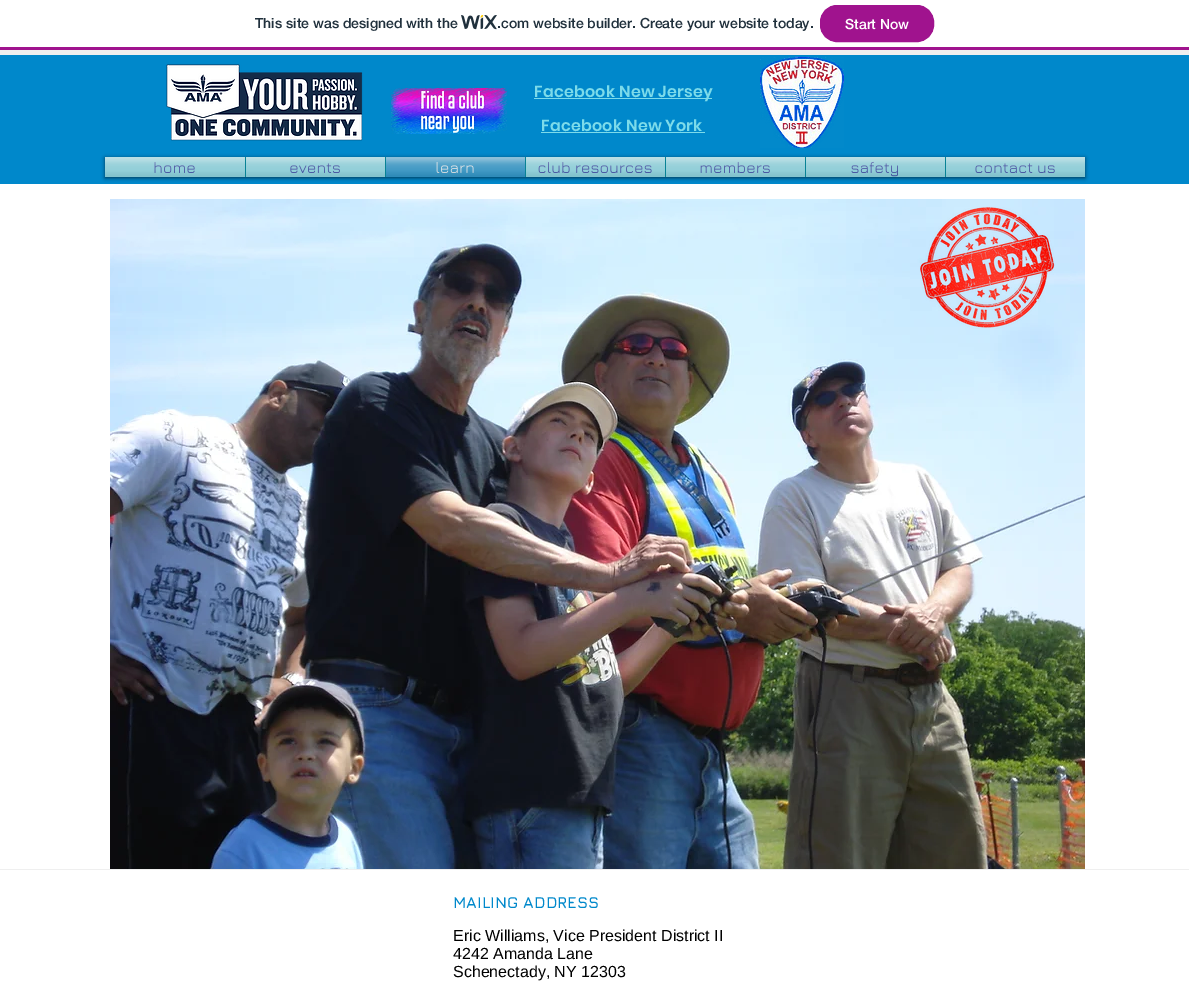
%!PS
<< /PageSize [1189 988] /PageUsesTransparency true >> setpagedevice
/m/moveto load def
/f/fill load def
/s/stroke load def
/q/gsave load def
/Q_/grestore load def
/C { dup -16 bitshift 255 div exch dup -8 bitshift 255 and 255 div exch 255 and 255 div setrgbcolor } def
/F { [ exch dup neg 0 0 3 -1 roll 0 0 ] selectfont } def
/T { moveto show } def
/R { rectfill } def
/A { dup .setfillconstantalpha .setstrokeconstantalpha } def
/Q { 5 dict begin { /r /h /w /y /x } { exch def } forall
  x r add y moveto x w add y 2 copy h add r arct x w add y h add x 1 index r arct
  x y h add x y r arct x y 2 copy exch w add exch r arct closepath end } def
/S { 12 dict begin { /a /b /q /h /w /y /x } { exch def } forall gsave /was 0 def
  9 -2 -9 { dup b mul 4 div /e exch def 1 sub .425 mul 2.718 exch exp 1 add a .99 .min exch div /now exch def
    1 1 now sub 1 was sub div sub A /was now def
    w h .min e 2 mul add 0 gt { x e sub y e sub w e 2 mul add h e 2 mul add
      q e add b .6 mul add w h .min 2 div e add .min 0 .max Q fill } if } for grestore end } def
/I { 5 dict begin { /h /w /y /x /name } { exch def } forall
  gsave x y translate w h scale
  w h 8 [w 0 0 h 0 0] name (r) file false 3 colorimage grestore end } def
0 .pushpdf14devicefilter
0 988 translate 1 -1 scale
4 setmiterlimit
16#FFFFFF C
0 0 1189 988 R
16#A0138E C
0 47 1189 3 R
/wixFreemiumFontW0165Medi-Medium 14 F
16#20303C C
(This site was designed with the) 255 28 T
(1.rgb) 461 15 36 15 I
(.com website builder. Create your website today.) 497 28 T
16#A0138E C
820.5 5.5 113 36 16.5 Q q f Q_
s
16#FFFFFF C
(Start Now) 845 29 T
16#0088CB C
0 55 1189 129 R
16#EFEFEF C
0 50 1189 5 R
(2.rgb) 166 64 197 77 I
(3.rgb) 391 88 116 46 I
16#7CDBEA C
534 98 178 1 R
/Poppins-SemiBold 16 F
534 97 m .2 0 (Facebook New Jersey) ashow
(4.rgb) 760 56 84 92 I
541 131 m .2 0 (Facebook New York) ashow
541 132 164 1 R
16#000000 C
105 158 980 20 0 2 .6 S
16#7CDBEA C
105 157 140 20 R
/Jura-Regular 16 F
16#081593 C
(home) 153 173 T
(5.rgb) 105 157 140 20 I
(6.rgb) 105 157 140 20 I
16#7CDBEA C
246 157 139 20 R
16#088295 C
245 157 1 20 R
16#081593 C
(events) 289 173 T
(7.rgb) 246 157 139 20 I
(8.rgb) 246 157 139 20 I
16#0088CB C
386 157 139 20 R
16#088295 C
385 157 1 20 R
16#FFFFFF C
(learn) 435 173 T
(9.rgb) 386 157 139 20 I
(10.rgb) 386 157 139 20 I
16#7CDBEA C
526 157 139 20 R
16#088295 C
525 157 1 20 R
16#081593 C
(club resources) 537 173 T
(11.rgb) 526 157 139 20 I
(12.rgb) 526 157 139 20 I
16#7CDBEA C
666 157 139 20 R
16#088295 C
665 157 1 20 R
16#081593 C
(members) 699 173 T
(13.rgb) 666 157 139 20 I
(14.rgb) 666 157 139 20 I
16#7CDBEA C
806 157 139 20 R
16#088295 C
805 157 1 20 R
16#081593 C
(safety) 851 173 T
(15.rgb) 806 157 139 20 I
(16.rgb) 806 157 139 20 I
16#7CDBEA C
946 157 139 20 R
16#088295 C
945 157 1 20 R
16#081593 C
(contact us) 974 173 T
(17.rgb) 946 157 139 20 I
(18.rgb) 946 157 139 20 I
(19.rgb) 110 199 975 670 I
(20.rgb) 920 207 135 122 I
16#EFEFEF C
0 869 1189 1 R
/Jura-Bold 16 F
16#0088CB C
(MAILING ADDRESS) 453 908 T
/LiberationSans-Regular 16 F
16#000000 C
(Eric Williams, Vice President District II) 453 941 T
(4242 Amanda Lane) 453 959 T
(Schenectady, NY 12303) 453 977 T
.poppdf14devicefilter showpage
